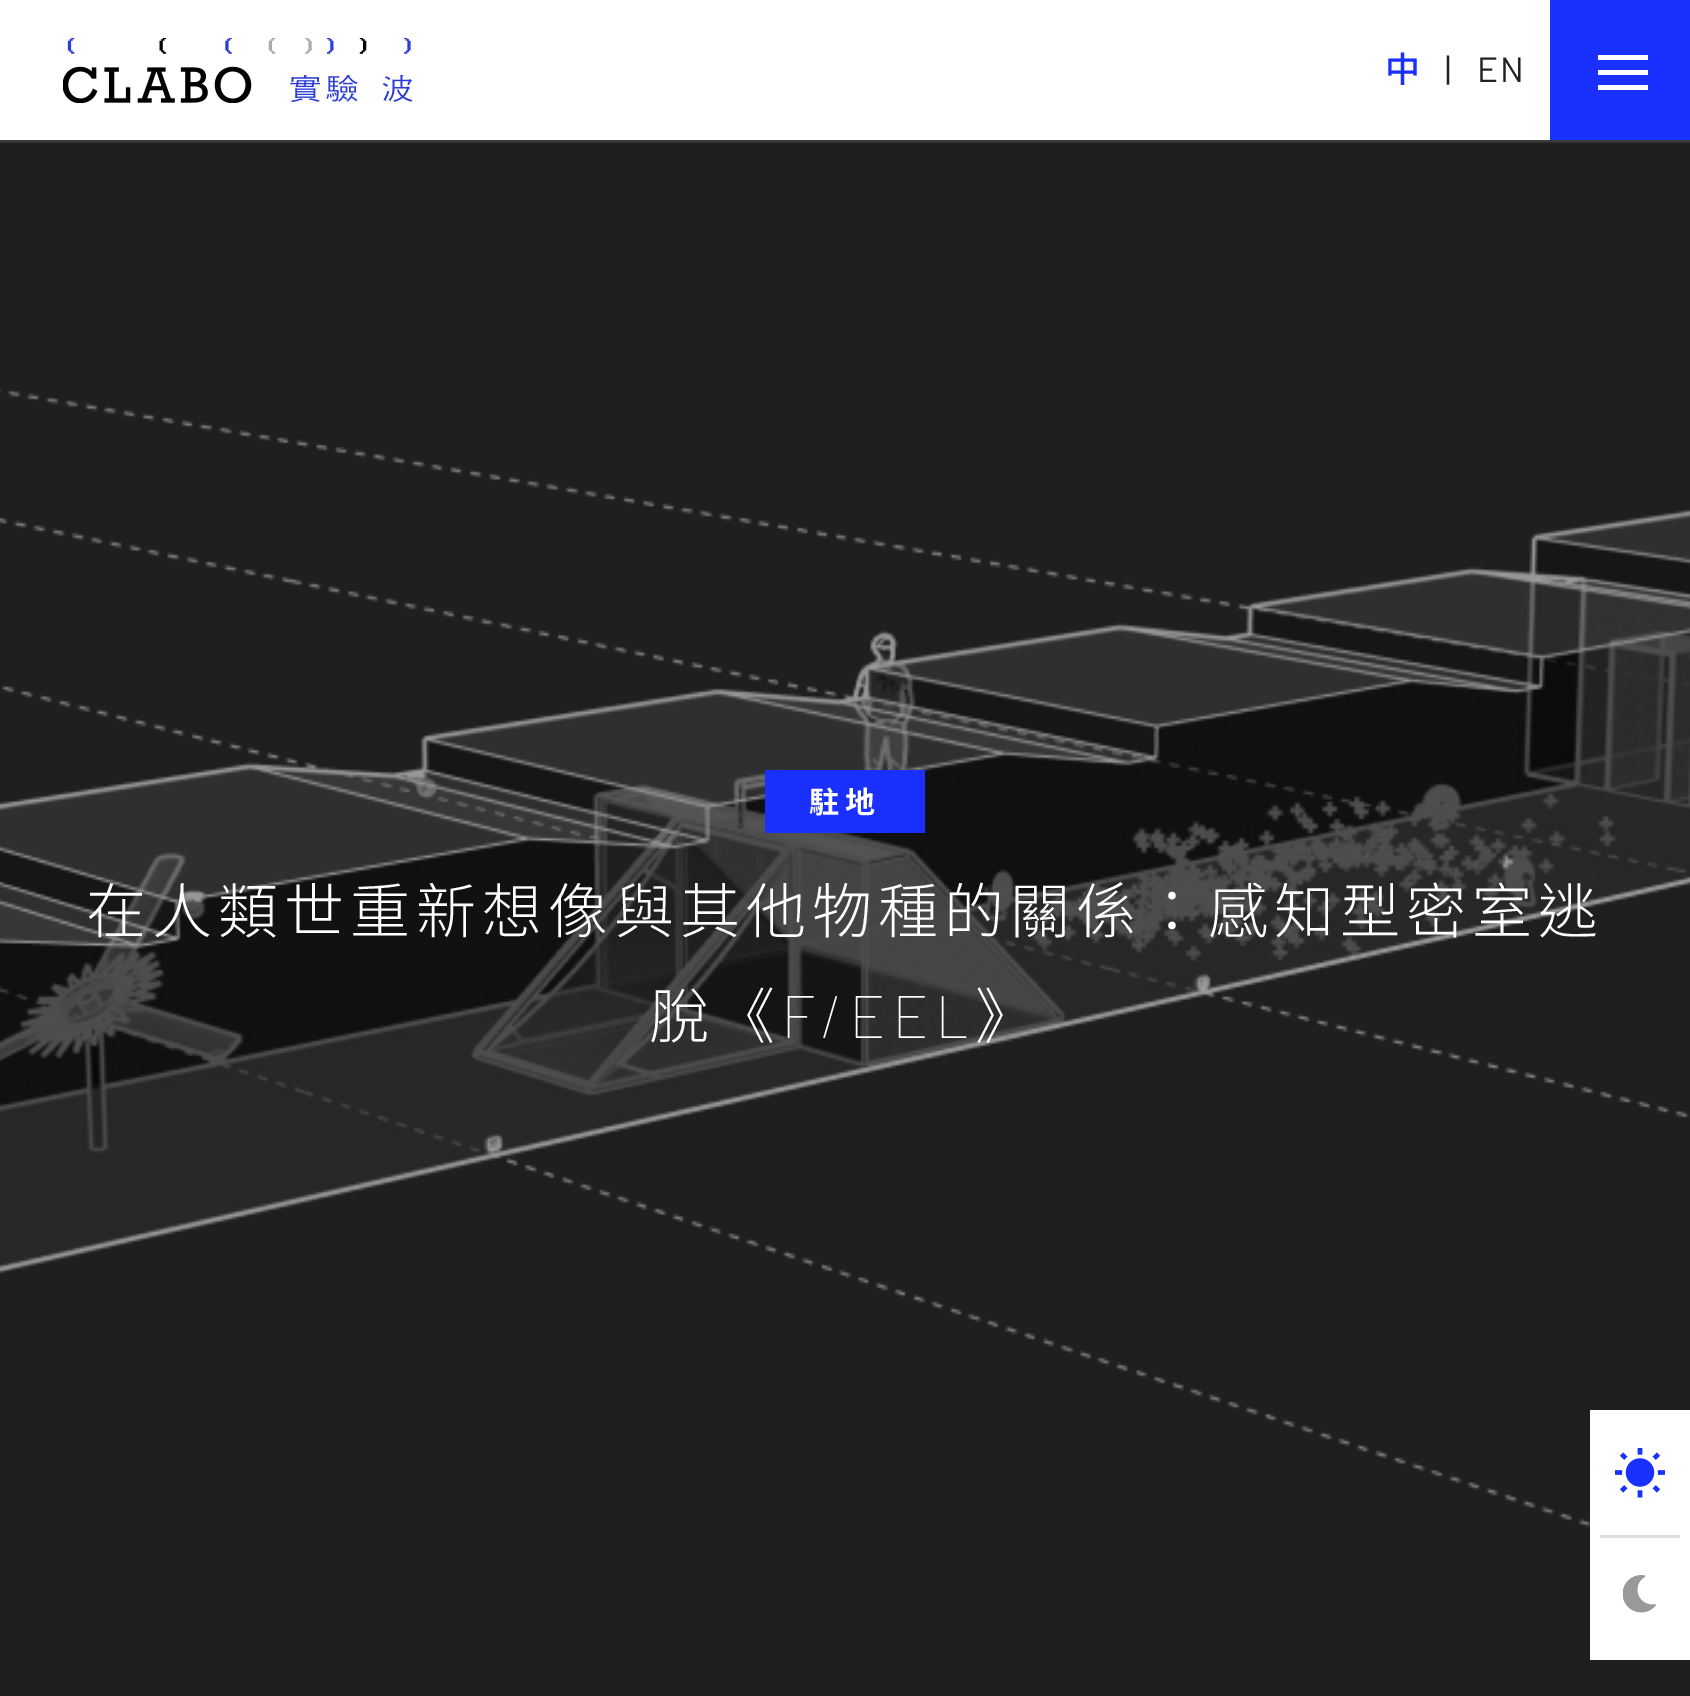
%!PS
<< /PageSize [1690 1696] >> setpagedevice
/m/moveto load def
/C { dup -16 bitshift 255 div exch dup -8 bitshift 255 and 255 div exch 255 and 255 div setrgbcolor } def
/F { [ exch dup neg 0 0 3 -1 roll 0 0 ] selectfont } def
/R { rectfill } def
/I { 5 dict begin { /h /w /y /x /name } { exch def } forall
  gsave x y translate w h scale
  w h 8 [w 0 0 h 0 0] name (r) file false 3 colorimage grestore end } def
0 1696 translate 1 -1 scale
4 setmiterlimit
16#FFFFFF C
0 0 1690 1696 R
(1.rgb) 63 38 350 65 I
/NotoSansTC-Medium 35 F
16#1A30FF C
1385 82 m 2 0 (中) ashow
/Barlow-Regular 35 F
16#222222 C
1445 82 m 2 0 (|) ashow
1477 82 m 2 0 (EN) ashow
16#1A30FF C
1550 0 140 140 R
16#FFFFFF C
1598 70 50 5 R
1598 55 50 5 R
1598 85 50 5 R
(2.rgb) 0 140 1690 1556 I
16#1A30FF C
765 770 160 63 R
/NotoSansTC-Bold 30 F
16#FFFFFF C
809 813 m 6 0 (駐地) ashow
/NotoSansTC-Light 60 F
86 933 m 6 0 (在人類世重新想像與其他物種的關係：感知型密室逃) ashow
649 1038 m 6 0 (脫《) ashow
/Barlow-Thin 60 F
781 1038 m 6 0 (F/EEL) ashow
/NotoSansTC-Light 60 F
975 1038 m 6 0 (》) ashow
1590 1410 100 250 R
(3.rgb) 1615 1448 50 50 I
16#DDDDDD C
1600 1535 80 3 R
(4.rgb) 1623 1575 33 38 I
showpage
